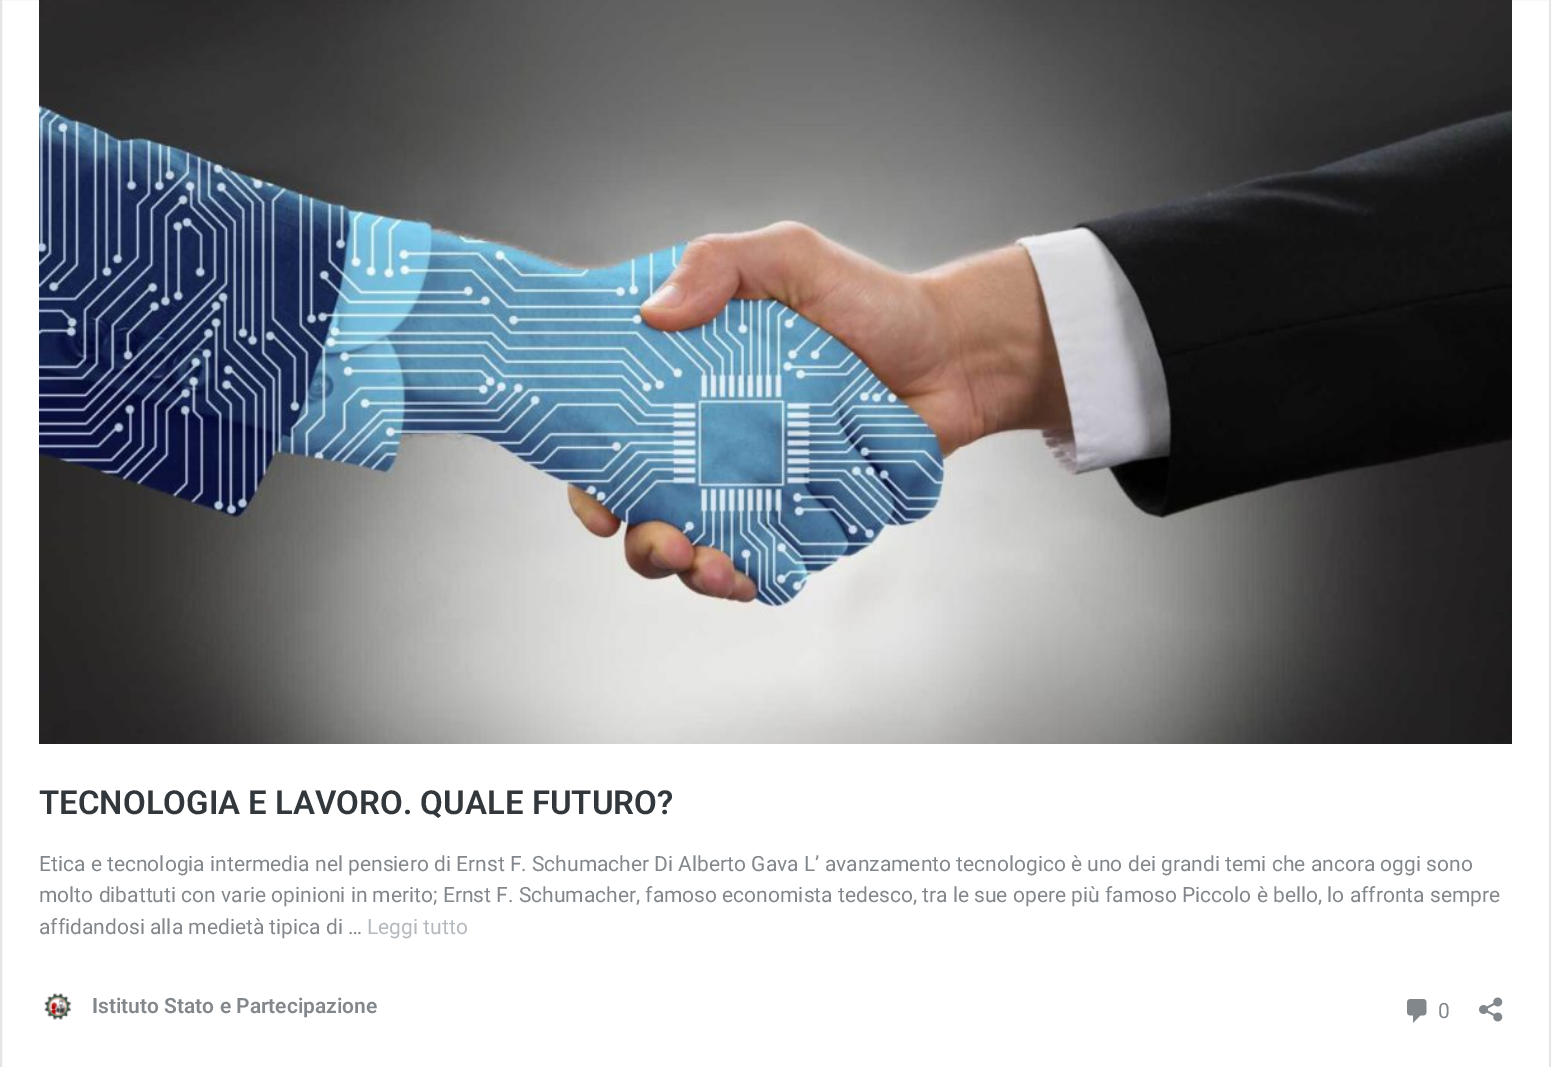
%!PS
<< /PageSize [1551 1067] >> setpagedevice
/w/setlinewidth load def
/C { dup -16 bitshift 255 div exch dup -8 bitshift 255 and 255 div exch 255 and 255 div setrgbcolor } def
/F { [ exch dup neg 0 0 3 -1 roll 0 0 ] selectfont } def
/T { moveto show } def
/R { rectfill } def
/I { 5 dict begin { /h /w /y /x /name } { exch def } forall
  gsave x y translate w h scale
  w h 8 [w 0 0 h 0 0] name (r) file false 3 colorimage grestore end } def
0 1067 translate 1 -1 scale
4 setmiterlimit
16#FFFFFF C
0 0 1551 1067 R
16#E5E5E5 C
2 w
1 -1 1549 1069 rectstroke
(1.rgb) 39 0 1473 744 I
/Roboto-SemiBold 33 F
16#32373C C
(TECNOLOGIA E LAVORO. QUALE FUTURO?) 39 814 T
/Roboto-Regular 21 F
16#82878C C
(Etica e tecnologia intermedia nel pensiero di Ernst F. Schumacher Di Alberto Gava L’ avanzamento tecnologico è uno dei grandi temi che ancora oggi sono) 39 871 T
(molto dibattuti con varie opinioni in merito; Ernst F. Schumacher, famoso economista tedesco, tra le sue opere più famoso Piccolo è bello, lo affronta sempre) 39 902 T
(affidandosi alla medietà tipica di …) 39 934 T
16#B4B9BE C
(Leggi tutto) 367 934 T
(2.rgb) 44 993 28 27 I
/Roboto-SemiBold 21 F
16#82878C C
(Istituto Stato e Partecipazione) 92 1013 T
(3.rgb) 1407 999 20 24 I
/Roboto-Regular 21 F
(0) 1438 1018 T
(4.rgb) 1479 997 24 25 I
showpage
